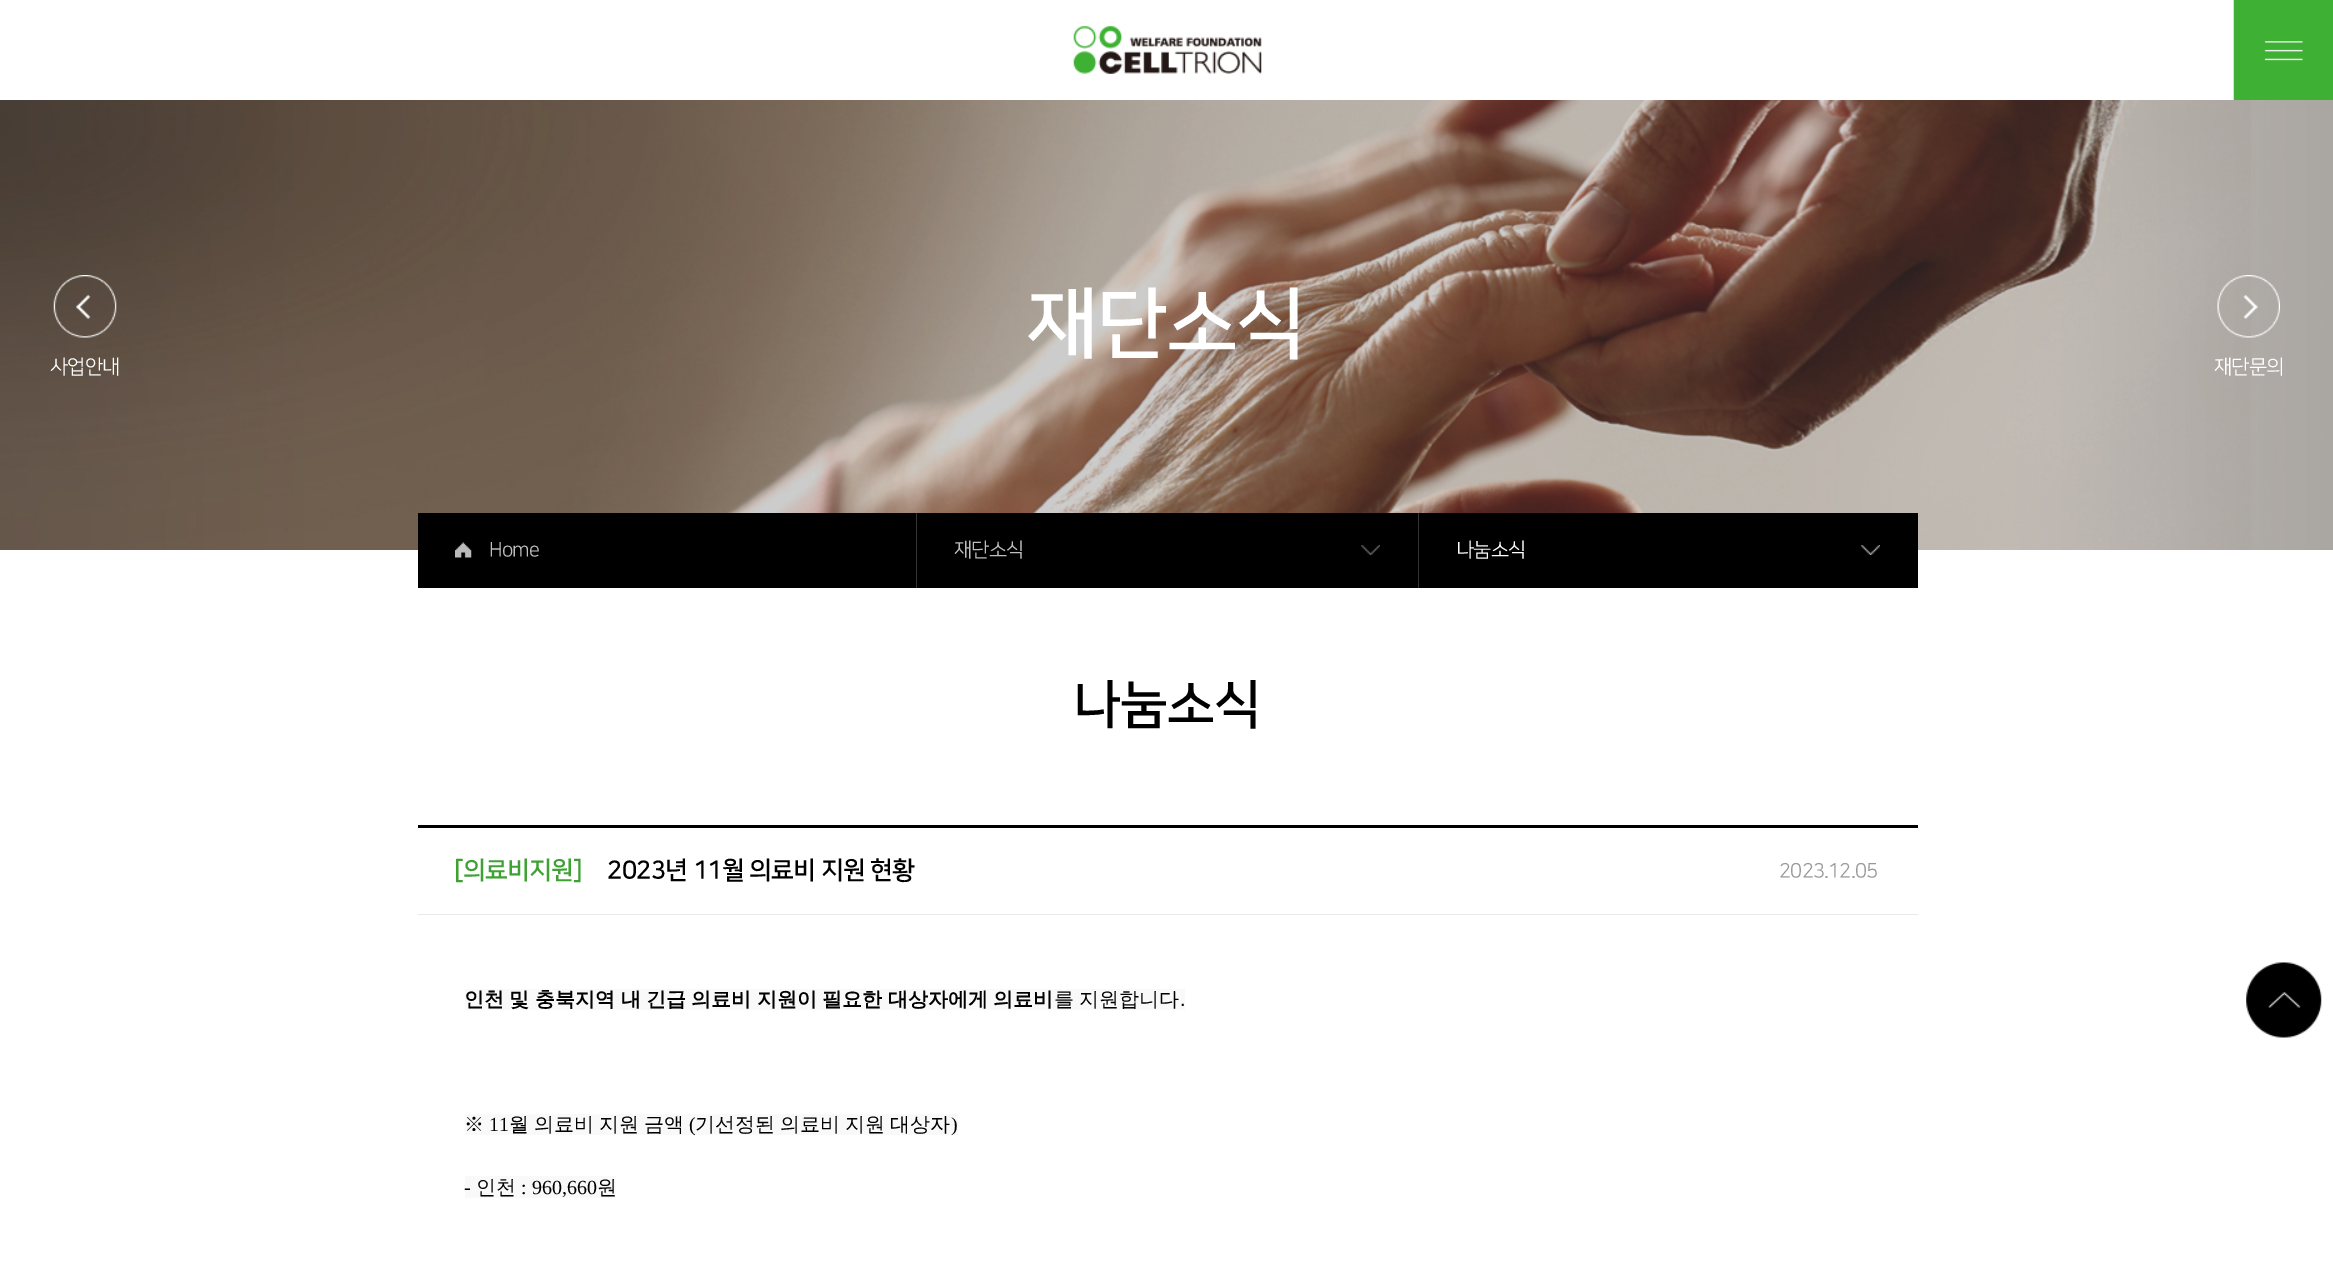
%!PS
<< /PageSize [2333 1283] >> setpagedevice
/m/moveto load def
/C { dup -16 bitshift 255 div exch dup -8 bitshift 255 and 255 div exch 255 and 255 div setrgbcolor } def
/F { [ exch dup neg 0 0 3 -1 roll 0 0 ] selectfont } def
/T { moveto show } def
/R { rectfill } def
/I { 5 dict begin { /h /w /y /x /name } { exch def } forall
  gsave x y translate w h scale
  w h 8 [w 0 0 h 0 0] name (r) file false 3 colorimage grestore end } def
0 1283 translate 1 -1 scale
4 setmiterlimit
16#FFFFFF C
0 0 2333 1283 R
(1.rgb) 1073 26 189 48 I
(2.rgb) 2233 0 100 100 I
(3.rgb) 0 100 2333 450 I
/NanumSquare-Bold 77.5 F
1027 348 m -.75 0 (재단소식) ashow
(4.rgb) 53 275 64 63 I
/NanumSquare-Regular 20 F
50 373 m -.75 0 (사업안내) ashow
(5.rgb) 2217 275 63 63 I
2214 373 m -.75 0 (재단문의) ashow
16#000000 C
418 513 1500 75 R
(6.rgb) 455 542 17 16 I
16#333333 C
916 513 1 75 R
16#BEBEBE C
489 556 m -.75 0 (Home) ashow
(7.rgb) 1361 545 19 10 I
954 556 m -.75 0 (재단소식) ashow
16#333333 C
1418 513 1 75 R
(8.rgb) 1861 545 19 10 I
16#FFFFFF C
1456 556 m -.75 0 (나눔소식) ashow
/NanumSquare-Bold 52.5 F
16#000000 C
1073 721 m -.75 0 (나눔소식) ashow
418 825 1500 3 R
16#E9E9E9 C
418 914 1500 1 R
/NanumSquare-Bold 25 F
16#3EA133 C
454 878 m -.75 0 ([의료비지원]) ashow
16#000000 C
607 878 m -.75 0 (2023년 11월 의료비 지원 현황) ashow
/NanumSquare-Regular 20 F
16#999999 C
1779 877 m -.75 0 (2023.12.05) ashow
16#F9F9F9 C
465 989 720 21 R
/WenQuanYiZenHei-Bold 20 F
16#000000 C
464 1006 m -.5 0 32 (인천 및 충북지역) widthshow
(내) 621 1006 T
646 1006 m -.5 0 32 (긴급 의료비 지원이 필요한 대상자에게 의료비) widthshow
/WenQuanYiZenHei-Medium 20 F
1054 1006 m -.5 0 32 (를 지원합니다) widthshow
/LiberationSans-Regular 20 F
(.) 1180 1006 T
16#F9F9F9 C
465 1114 493 21 R
/WenQuanYiZenHei-Medium 20 F
16#000000 C
(※) 464 1131 T
/LiberationSerif-Regular 20 F
(11) 489 1131 T
/WenQuanYiZenHei-Medium 20 F
509 1131 m -1 0 32 (월 의료비 지원 금액) widthshow
/LiberationSerif-Regular 20 F
(\() 689 1131 T
/WenQuanYiZenHei-Medium 20 F
695 1131 m -1 0 32 (기선정된 의료비 지원 대상자) widthshow
/LiberationSerif-Regular 20 F
(\)) 951 1131 T
16#F9F9F9 C
465 1176 151 22 R
16#000000 C
(-) 464 1194 T
/WenQuanYiZenHei-Medium 20 F
(인천) 476 1194 T
/LiberationSerif-Regular 20 F
(: 960,660) 521 1194 T
/WenQuanYiZenHei-Medium 20 F
(원) 597 1194 T
(9.rgb) 2246 962 76 76 I
showpage
